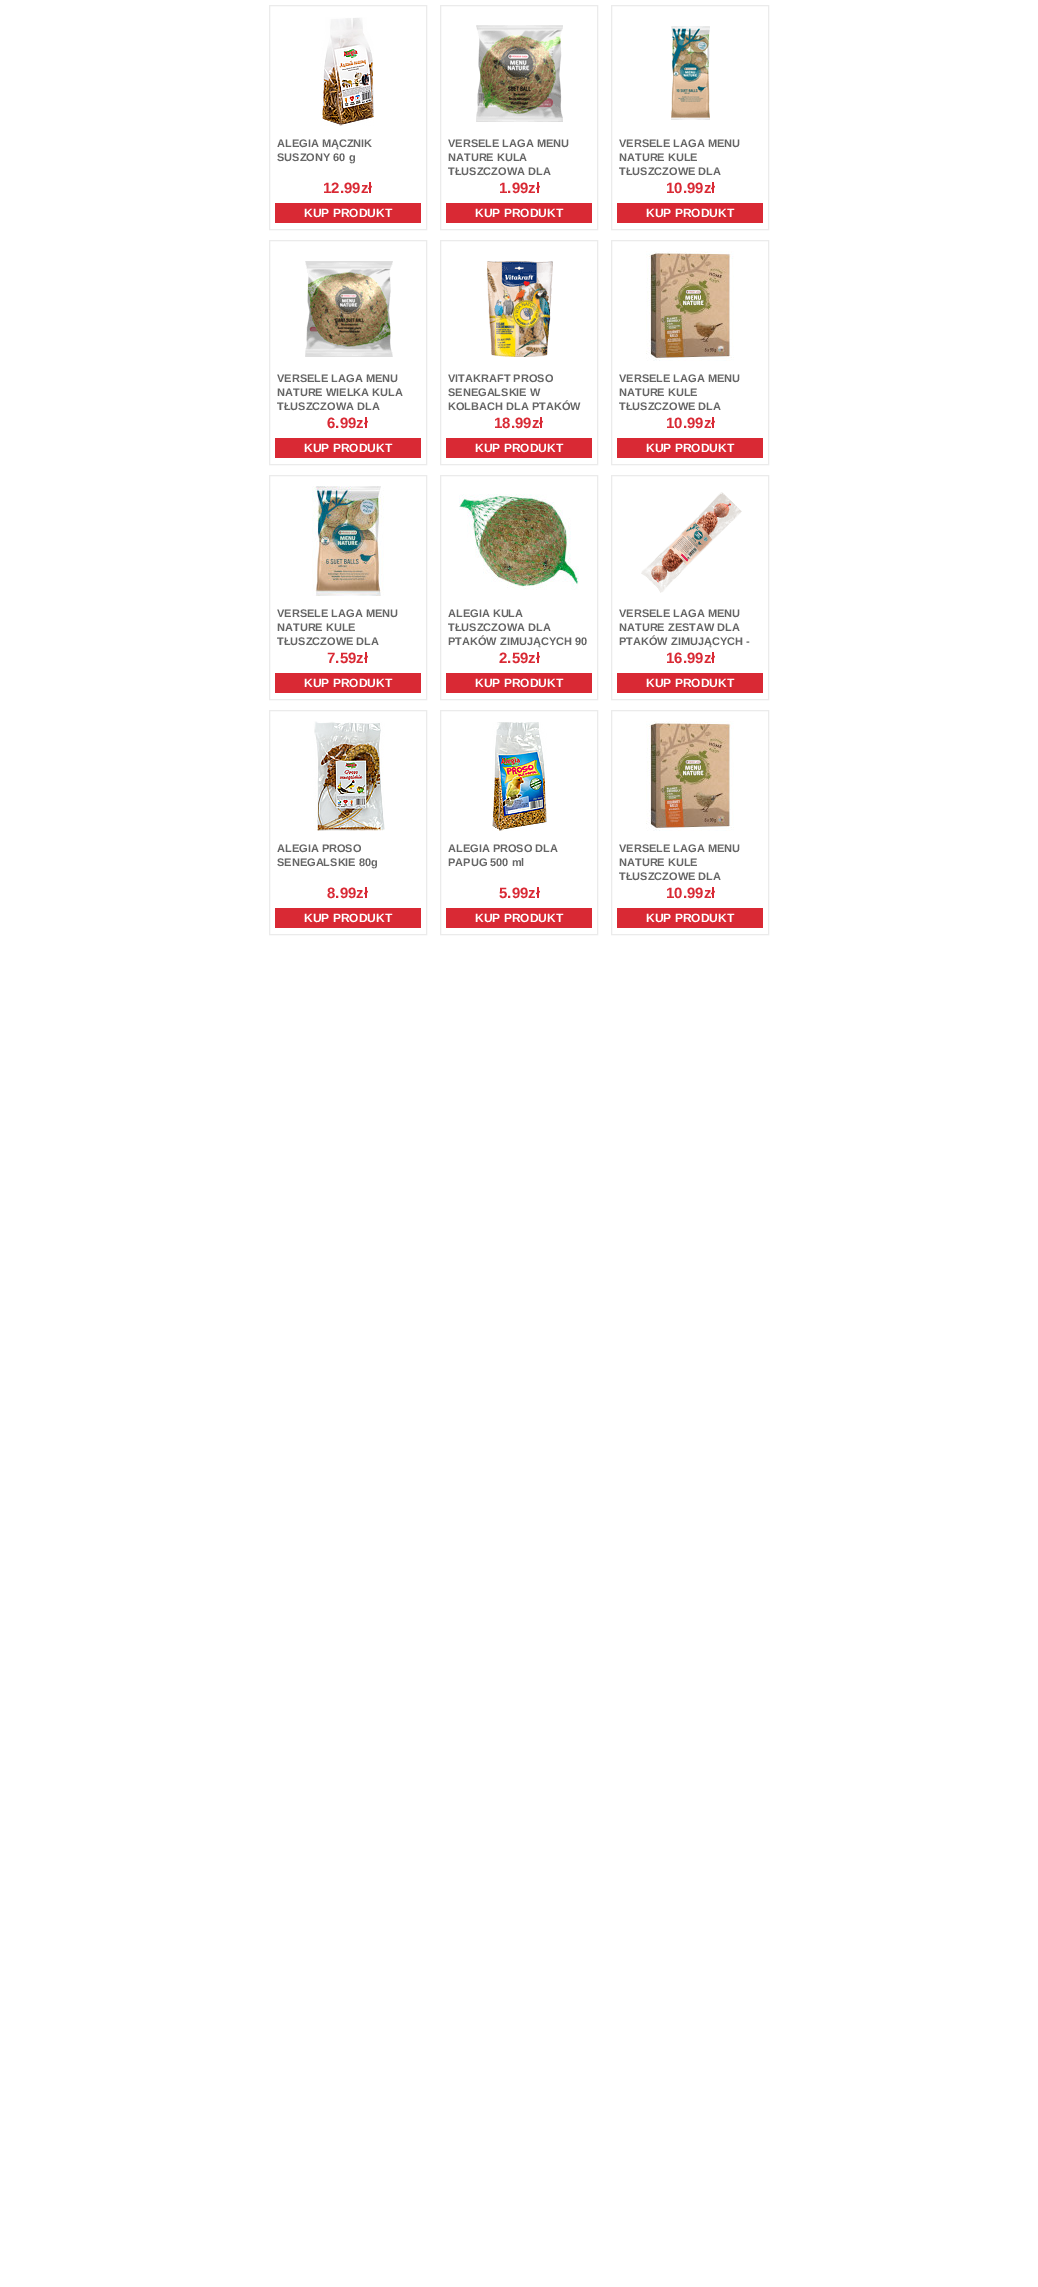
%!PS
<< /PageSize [1038 2287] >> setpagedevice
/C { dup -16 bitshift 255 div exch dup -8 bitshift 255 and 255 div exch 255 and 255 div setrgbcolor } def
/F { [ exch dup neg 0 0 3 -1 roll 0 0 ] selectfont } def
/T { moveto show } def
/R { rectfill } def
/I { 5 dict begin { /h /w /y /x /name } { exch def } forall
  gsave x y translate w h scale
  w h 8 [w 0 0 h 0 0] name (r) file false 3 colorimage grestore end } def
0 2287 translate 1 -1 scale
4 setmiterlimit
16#FFFFFF C
0 0 1038 2287 R
16#EBEBEB C
269.5 5.5 157 224 rectstroke
(1.rgb) 320 17 54 109 I
/LiberationSans-Bold 11 F
16#666666 C
(ALEGIA MĄCZNIK) 277 147 T
(SUSZONY 60 g) 277 161 T
/LiberationSans-Bold 15 F
16#D92934 C
(12.99zł) 323 193 T
275 203 146 20 R
/LiberationSans-Bold 12 F
16#FFFFFF C
(KUP PRODUKT) 304 217 T
16#EBEBEB C
440.5 5.5 157 224 rectstroke
(2.rgb) 476 25 87 97 I
/LiberationSans-Bold 11 F
16#666666 C
(VERSELE LAGA MENU) 448 147 T
(NATURE KULA) 448 161 T
(TŁUSZCZOWA DLA) 448 175 T
/LiberationSans-Bold 15 F
16#D92934 C
(1.99zł) 499 193 T
446 203 146 20 R
/LiberationSans-Bold 12 F
16#FFFFFF C
(KUP PRODUKT) 475 217 T
16#EBEBEB C
611.5 5.5 157 224 rectstroke
(3.rgb) 671 26 39 94 I
/LiberationSans-Bold 11 F
16#666666 C
(VERSELE LAGA MENU) 619 147 T
(NATURE KULE) 619 161 T
(TŁUSZCZOWE DLA) 619 175 T
/LiberationSans-Bold 15 F
16#D92934 C
(10.99zł) 666 193 T
617 203 146 20 R
/LiberationSans-Bold 12 F
16#FFFFFF C
(KUP PRODUKT) 646 217 T
16#EBEBEB C
269.5 240.5 157 224 rectstroke
(4.rgb) 305 261 88 96 I
/LiberationSans-Bold 11 F
16#666666 C
(VERSELE LAGA MENU) 277 382 T
(NATURE WIELKA KULA) 277 396 T
(TŁUSZCZOWA DLA) 277 410 T
/LiberationSans-Bold 15 F
16#D92934 C
(6.99zł) 327 428 T
275 438 146 20 R
/LiberationSans-Bold 12 F
16#FFFFFF C
(KUP PRODUKT) 304 452 T
16#EBEBEB C
440.5 240.5 157 224 rectstroke
(5.rgb) 487 261 66 96 I
/LiberationSans-Bold 11 F
16#666666 C
(VITAKRAFT PROSO) 448 382 T
(SENEGALSKIE W) 448 396 T
(KOLBACH DLA PTAKÓW) 448 410 T
/LiberationSans-Bold 15 F
16#D92934 C
(18.99zł) 494 428 T
446 438 146 20 R
/LiberationSans-Bold 12 F
16#FFFFFF C
(KUP PRODUKT) 475 452 T
16#EBEBEB C
611.5 240.5 157 224 rectstroke
(6.rgb) 646 251 88 110 I
/LiberationSans-Bold 11 F
16#666666 C
(VERSELE LAGA MENU) 619 382 T
(NATURE KULE) 619 396 T
(TŁUSZCZOWE DLA) 619 410 T
/LiberationSans-Bold 15 F
16#D92934 C
(10.99zł) 666 428 T
617 438 146 20 R
/LiberationSans-Bold 12 F
16#FFFFFF C
(KUP PRODUKT) 646 452 T
16#EBEBEB C
269.5 475.5 157 224 rectstroke
(7.rgb) 312 486 72 110 I
/LiberationSans-Bold 11 F
16#666666 C
(VERSELE LAGA MENU) 277 617 T
(NATURE KULE) 277 631 T
(TŁUSZCZOWE DLA) 277 645 T
/LiberationSans-Bold 15 F
16#D92934 C
(7.59zł) 327 663 T
275 673 146 20 R
/LiberationSans-Bold 12 F
16#FFFFFF C
(KUP PRODUKT) 304 687 T
16#EBEBEB C
440.5 475.5 157 224 rectstroke
(8.rgb) 459 494 120 96 I
/LiberationSans-Bold 11 F
16#666666 C
(ALEGIA KULA) 448 617 T
(TŁUSZCZOWA DLA) 448 631 T
(PTAKÓW ZIMUJĄCYCH 90) 448 645 T
/LiberationSans-Bold 15 F
16#D92934 C
(2.59zł) 499 663 T
446 673 146 20 R
/LiberationSans-Bold 12 F
16#FFFFFF C
(KUP PRODUKT) 475 687 T
16#EBEBEB C
611.5 475.5 157 224 rectstroke
(9.rgb) 641 492 101 101 I
/LiberationSans-Bold 11 F
16#666666 C
(VERSELE LAGA MENU) 619 617 T
(NATURE ZESTAW DLA) 619 631 T
(PTAKÓW ZIMUJĄCYCH -) 619 645 T
/LiberationSans-Bold 15 F
16#D92934 C
(16.99zł) 666 663 T
617 673 146 20 R
/LiberationSans-Bold 12 F
16#FFFFFF C
(KUP PRODUKT) 646 687 T
16#EBEBEB C
269.5 710.5 157 224 rectstroke
(10.rgb) 313 721 72 110 I
/LiberationSans-Bold 11 F
16#666666 C
(ALEGIA PROSO) 277 852 T
(SENEGALSKIE 80g) 277 866 T
/LiberationSans-Bold 15 F
16#D92934 C
(8.99zł) 327 898 T
275 908 146 20 R
/LiberationSans-Bold 12 F
16#FFFFFF C
(KUP PRODUKT) 304 922 T
16#EBEBEB C
440.5 710.5 157 224 rectstroke
(11.rgb) 492 722 55 109 I
/LiberationSans-Bold 11 F
16#666666 C
(ALEGIA PROSO DLA) 448 852 T
(PAPUG 500 ml) 448 866 T
/LiberationSans-Bold 15 F
16#D92934 C
(5.99zł) 499 898 T
446 908 146 20 R
/LiberationSans-Bold 12 F
16#FFFFFF C
(KUP PRODUKT) 475 922 T
16#EBEBEB C
611.5 710.5 157 224 rectstroke
(12.rgb) 646 721 88 110 I
/LiberationSans-Bold 11 F
16#666666 C
(VERSELE LAGA MENU) 619 852 T
(NATURE KULE) 619 866 T
(TŁUSZCZOWE DLA) 619 880 T
/LiberationSans-Bold 15 F
16#D92934 C
(10.99zł) 666 898 T
617 908 146 20 R
/LiberationSans-Bold 12 F
16#FFFFFF C
(KUP PRODUKT) 646 922 T
showpage
